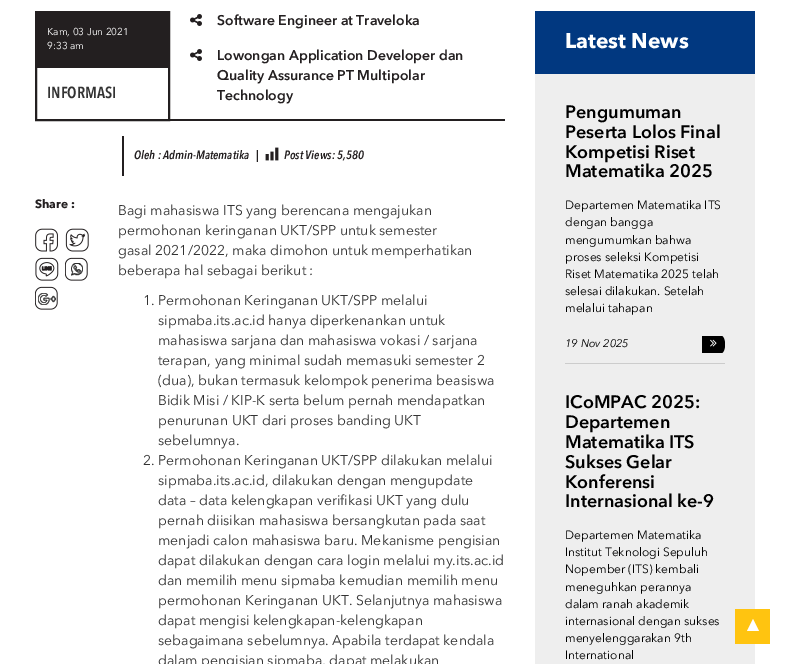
%!PS
<< /PageSize [790 664] >> setpagedevice
/m/moveto load def
/l/rlineto load def
/c/rcurveto load def
/z/closepath load def
/f/fill load def
/w/setlinewidth load def
/C { dup -16 bitshift 255 div exch dup -8 bitshift 255 and 255 div exch 255 and 255 div setrgbcolor } def
/F { [ exch dup neg 0 0 3 -1 roll 0 0 ] selectfont } def
/T { moveto show } def
/R { rectfill } def
/I { 5 dict begin { /h /w /y /x /name } { exch def } forall
  gsave x y translate w h scale
  w h 8 [w 0 0 h 0 0] name (r) file false 3 colorimage grestore end } def
0 664 translate 1 -1 scale
4 setmiterlimit
16#FFFFFF C
0 0 790 664 R
16#231F20 C
2 w
36 12 133 108 rectstroke
37 13 131 55 R
/AvenirNext-Regular 10 F
16#FFFFFF C
(Kam, 03 Jun 2021) 47 35 T
(9:33 am) 47 49 T
/AvenirNext-SemiBold 16 F
16#333333 C
(INFORMASI) 47 98 T
16#231F20 C
170 119 335 2 R
(1.rgb) 190 14 12 12 I
/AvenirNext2-SemiBold 14 F
(Software Engineer at Traveloka) 217 25 T
(1.rgb) 190 49 12 12 I
(Lowongan Application Developer dan) 217 60 T
(Quality Assurance PT Multipolar) 217 80 T
(Technology) 217 100 T
/AvenirNext-Bold 12 F
(Share :) 35 208 T
(2.rgb) 35 228 23 24 I
(3.rgb) 65 228 24 24 I
(4.rgb) 35 257 24 24 I
(5.rgb) 65 257 23 24 I
(6.rgb) 35 286 23 24 I
122 136 2 40 R
/AvenirNext-SemiBoldItalic 12 F
(Oleh : Admin-Matematika   |) 134 159 T
(7.rgb) 265 147 14 14 I
(Post Views: 5,580) 284 159 T
/AvenirNext-Regular 14 F
16#333333 C
(Bagi mahasiswa ITS yang berencana mengajukan) 118 215 T
(permohonan keringanan UKT/SPP untuk semester) 118 235 T
(gasal 2021/2022, maka dimohon untuk memperhatikan) 118 255 T
(beberapa hal sebagai berikut :) 118 275 T
(1. Permohonan Keringanan UKT/SPP melalui) 143 305 T
(sipmaba.its.ac.id hanya diperkenankan untuk) 158 325 T
(mahasiswa sarjana dan mahasiswa vokasi / sarjana) 158 345 T
(terapan, yang minimal sudah memasuki semester 2) 158 365 T
(\(dua\), bukan termasuk kelompok penerima beasiswa) 158 385 T
(Bidik Misi / KIP-K serta belum pernah mendapatkan) 158 405 T
(penurunan UKT dari proses banding UKT) 158 425 T
(sebelumnya.) 158 445 T
(2. Permohonan Keringanan UKT/SPP dilakukan melalui) 143 465 T
(sipmaba.its.ac.id, dilakukan dengan mengupdate) 158 485 T
(data – data kelengkapan verifikasi UKT yang dulu) 158 505 T
(pernah diisikan mahasiswa bersangkutan pada saat) 158 525 T
(menjadi calon mahasiswa baru. Mekanisme pengisian) 158 545 T
(dapat dilakukan dengan cara login melalui my.its.ac.id) 158 565 T
(dan memilih menu sipmaba kemudian memilih menu) 158 585 T
(permohonan Keringanan UKT. Selanjutnya mahasiswa) 158 605 T
(dapat mengisi kelengkapan-kelengkapan) 158 625 T
(sebagaimana sebelumnya. Apabila terdapat kendala) 158 645 T
(dalam pengisian sipmaba, dapat melakukan) 158 665 T
16#EEEEEE C
535 74 220 590 R
16#013880 C
535 11 220 63 R
/AvenirNext-Bold 21 F
16#FFFFFF C
(Latest News) 565 48 T
16#CCCCCC C
565 363 160 1 R
/AvenirNext2-SemiBold 18 F
16#000000 C
(Pengumuman) 565 118 T
(Peserta Lolos Final) 565 138 T
(Kompetisi Riset) 565 158 T
(Matematika 2025) 565 177 T
/AvenirNext-Regular 12 F
(Departemen Matematika ITS) 565 209 T
(dengan bangga) 565 226 T
(mengumumkan bahwa) 565 244 T
(proses seleksi Kompetisi) 565 261 T
(Riset Matematika 2025 telah) 565 278 T
(selesai dilakukan. Setelah) 565 295 T
(melalui tahapan) 565 312 T
/AvenirNext-Italic 11 F
(19 Nov 2025) 565 347 T
702 336 m 19.5 0 l 2 0 3.5 4 3.5 8.5 c 0 4.5 -1.5 8.5 -3.5 8.5 c -19.5 0 l z f
(8.rgb) 710 339 7 8 I
/AvenirNext2-SemiBold 18 F
(ICoMPAC 2025:) 565 408 T
(Departemen) 565 428 T
(Matematika ITS) 565 448 T
(Sukses Gelar) 565 468 T
(Konferensi) 565 488 T
(Internasional ke-9) 565 507 T
/AvenirNext-Regular 12 F
(Departemen Matematika) 565 539 T
(Institut Teknologi Sepuluh) 565 556 T
(Nopember \(ITS\) kembali) 565 573 T
(meneguhkan perannya) 565 591 T
(dalam ranah akademik) 565 608 T
(internasional dengan sukses) 565 625 T
(menyelenggarakan 9th) 565 642 T
(International) 565 659 T
16#FFC410 C
735 609 35 35 R
16#FFFFFF C
759 631 m -12 0 l 6 -12 l z f
showpage
